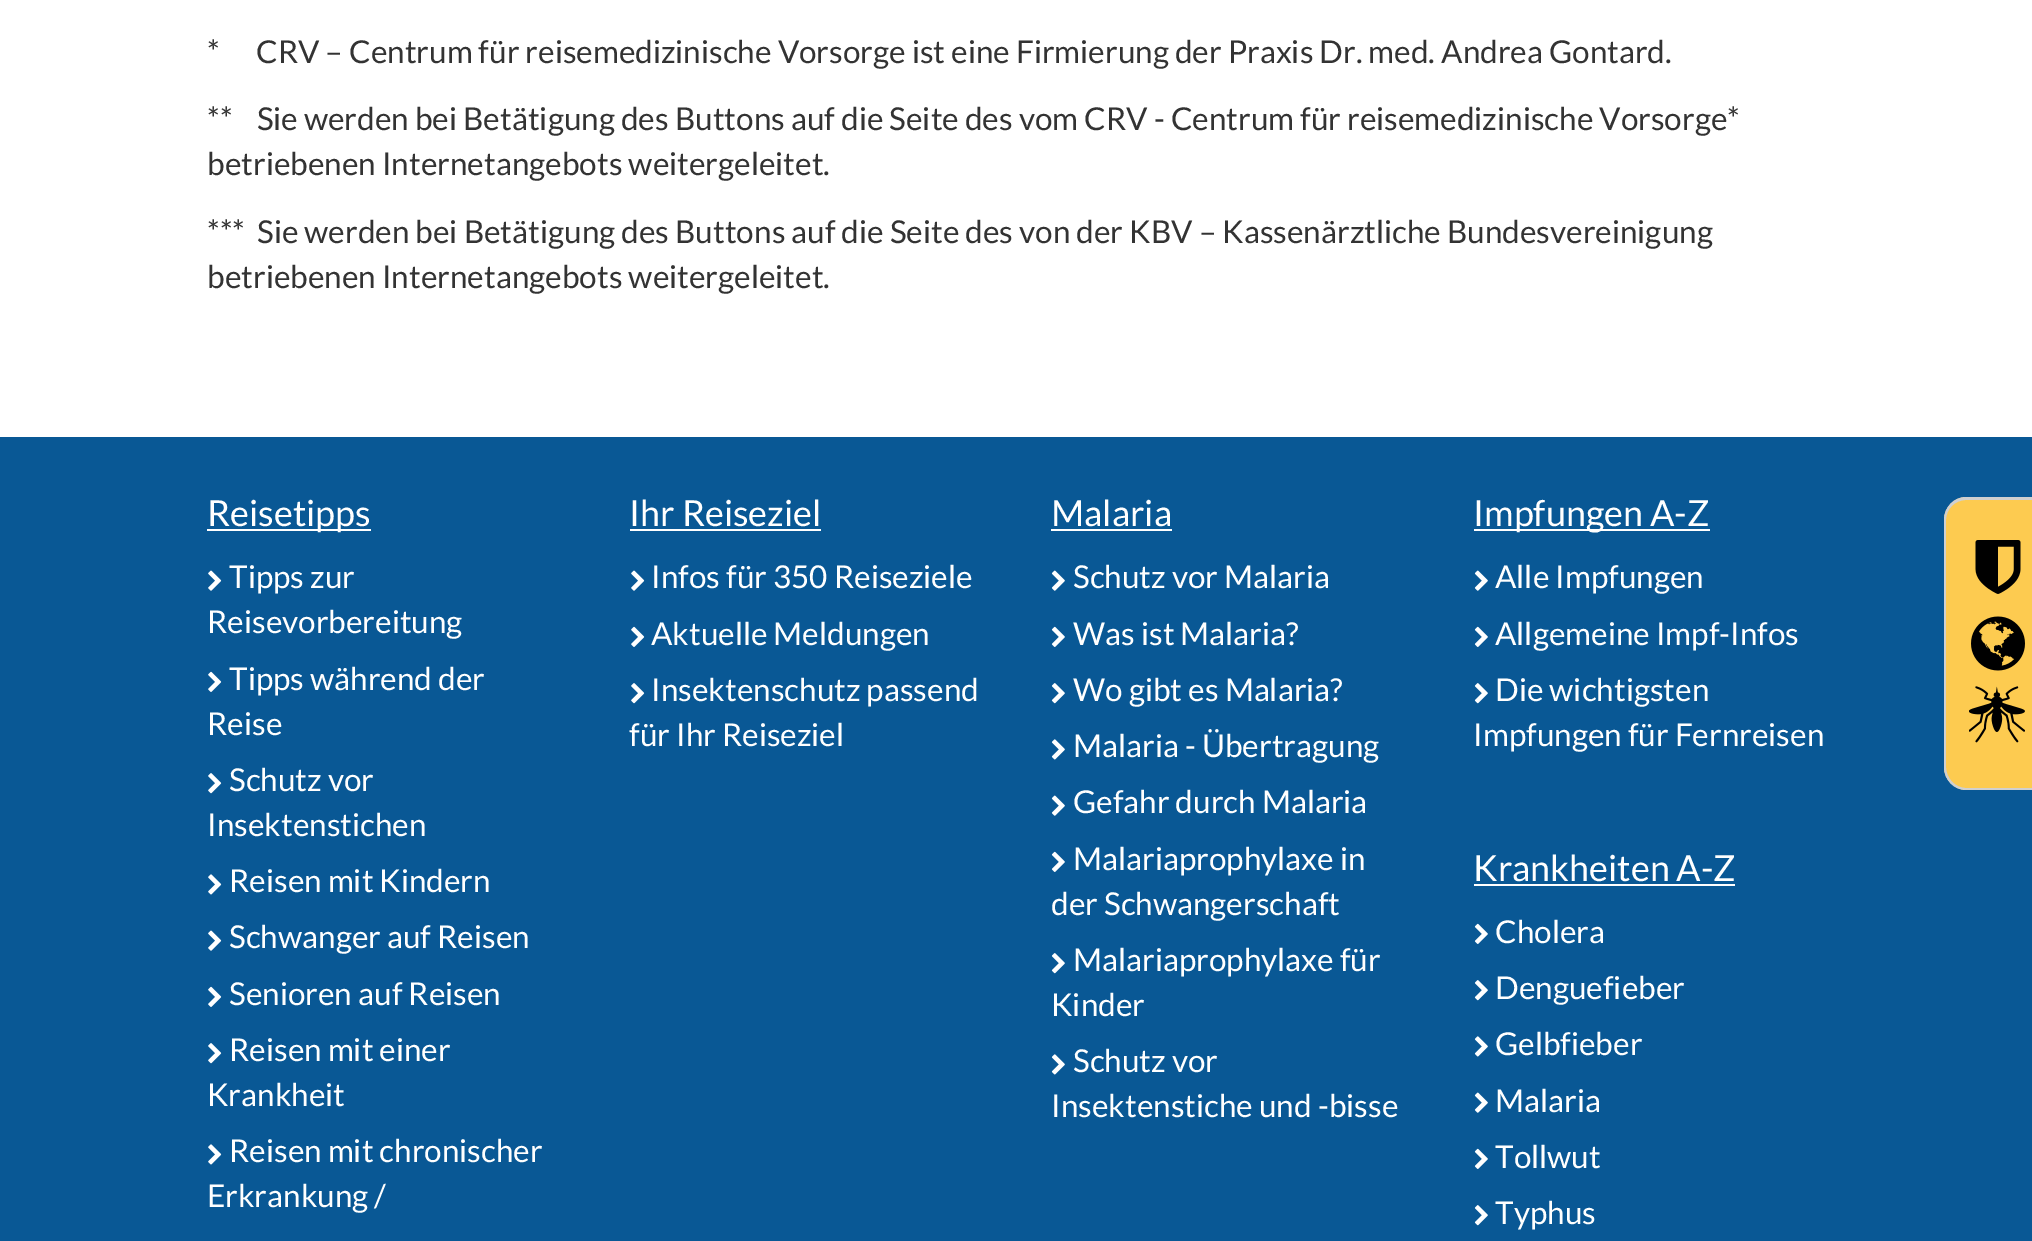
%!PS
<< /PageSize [2032 1241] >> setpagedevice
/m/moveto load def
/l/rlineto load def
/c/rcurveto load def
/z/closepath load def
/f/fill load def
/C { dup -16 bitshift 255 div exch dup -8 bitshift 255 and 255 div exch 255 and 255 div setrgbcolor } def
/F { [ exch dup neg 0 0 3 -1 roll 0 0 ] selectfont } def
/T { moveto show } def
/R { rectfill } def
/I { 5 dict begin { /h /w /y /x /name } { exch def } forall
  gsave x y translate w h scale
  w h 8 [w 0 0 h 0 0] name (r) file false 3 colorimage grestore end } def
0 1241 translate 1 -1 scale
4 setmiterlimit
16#FFFFFF C
0 0 2032 1241 R
/Lato-Regular 31.5 F
16#333333 C
(*      CRV – Centrum für reisemedizinische Vorsorge ist eine Firmierung der Praxis Dr. med. Andrea Gontard.) 207 63 T
(**    Sie werden bei Betätigung des Buttons auf die Seite des vom CRV - Centrum für reisemedizinische Vorsorge*) 207 130 T
(betriebenen Internetangebots weitergeleitet.) 207 175 T
(***  Sie werden bei Betätigung des Buttons auf die Seite des von der KBV – Kassenärztliche Bundesvereinigung) 207 243 T
(betriebenen Internetangebots weitergeleitet.) 207 288 T
16#095895 C
0 437 2032 804 R
16#FFFFFF C
207 529 164 2 R
/Lato-Regular 36 F
(Reisetipps) 207 526 T
(1.rgb) 208 570 14 21 I
/Lato-Regular 31.5 F
(Tipps zur) 229 588 T
(Reisevorbereitung) 207 633 T
(2.rgb) 208 671 14 21 I
(Tipps während der) 229 690 T
(Reise) 207 735 T
(3.rgb) 208 773 14 21 I
(Schutz vor) 229 791 T
(Insektenstichen) 207 836 T
(4.rgb) 208 874 14 21 I
(Reisen mit Kindern) 229 892 T
(1.rgb) 208 930 14 21 I
(Schwanger auf Reisen) 229 948 T
(2.rgb) 208 986 14 21 I
(Senioren auf Reisen) 229 1005 T
(3.rgb) 208 1043 14 21 I
(Reisen mit einer) 229 1061 T
(Krankheit) 207 1106 T
(4.rgb) 208 1144 14 21 I
(Reisen mit chronischer) 229 1162 T
(Erkrankung /) 207 1207 T
/Lato-Regular 36 F
(Ihr Reiseziel) 629 526 T
630 529 191 2 R
(1.rgb) 631 570 14 21 I
/Lato-Regular 31.5 F
(Infos für 350 Reiseziele) 651 588 T
(2.rgb) 631 626 14 21 I
(Aktuelle Meldungen) 651 645 T
(3.rgb) 631 683 14 21 I
(Insektenschutz passend) 651 701 T
(für Ihr Reiseziel) 629 746 T
/Lato-Regular 36 F
(Malaria) 1051 526 T
1051 529 121 2 R
(5.rgb) 1051 570 14 21 I
/Lato-Regular 31.5 F
(Schutz vor Malaria) 1073 588 T
(6.rgb) 1051 626 14 21 I
(Was ist Malaria?) 1073 645 T
(7.rgb) 1051 683 14 21 I
(Wo gibt es Malaria?) 1073 701 T
(8.rgb) 1051 739 14 21 I
(Malaria - Übertragung) 1073 757 T
(5.rgb) 1051 795 14 21 I
(Gefahr durch Malaria) 1073 813 T
(6.rgb) 1051 851 14 21 I
(Malariaprophylaxe in) 1073 870 T
(der Schwangerschaft) 1051 915 T
(7.rgb) 1051 953 14 21 I
(Malariaprophylaxe für) 1073 971 T
(Kinder) 1051 1016 T
(8.rgb) 1051 1054 14 21 I
(Schutz vor) 1073 1072 T
(Insektenstiche und -bisse) 1051 1117 T
1474 529 236 2 R
/Lato-Regular 36 F
(Impfungen A-Z) 1473 526 T
(5.rgb) 1474 570 14 21 I
/Lato-Regular 31.5 F
(Alle Impfungen) 1495 588 T
(6.rgb) 1474 626 14 21 I
(Allgemeine Impf-Infos) 1495 645 T
(7.rgb) 1474 683 14 21 I
(Die wichtigsten) 1495 701 T
(Impfungen für Fernreisen) 1473 746 T
/Lato-Regular 36 F
(Krankheiten A-Z) 1473 881 T
1474 884 261 2 R
(6.rgb) 1474 923 14 21 I
/Lato-Regular 31.5 F
(Cholera) 1495 943 T
(7.rgb) 1474 980 14 21 I
(Denguefieber) 1495 999 T
(8.rgb) 1474 1036 14 21 I
(Gelbfieber) 1495 1055 T
(5.rgb) 1474 1092 14 21 I
(Malaria) 1495 1112 T
(6.rgb) 1474 1148 14 21 I
(Tollwut) 1495 1168 T
(7.rgb) 1474 1205 14 21 I
(Typhus) 1495 1224 T
16#FDCB50 C
1967 497 m 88 0 l 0 293 l -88 0 l -12.5 0 -23 -10.5 -23 -23 c 0 -247 l 0 -12.5 10.5 -23 23 -23 c z f
16#D0D0D0 C
1966 497 m 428 0 l 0 293 l -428 0 l -12 0 -22 -10 -22 -23 c 0 -247 l 0 -13 10 -23 22 -23 c z 1966 500 m 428 0 l 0 288 l -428 0 l -11 0 -20 -10 -20 -21 c 0 -247 l 0 -11 9 -20 20 -20 c z eofill
(9.rgb) 1975 540 46 54 I
(10.rgb) 1971 616 54 55 I
(11.rgb) 1969 686 56 57 I
showpage
